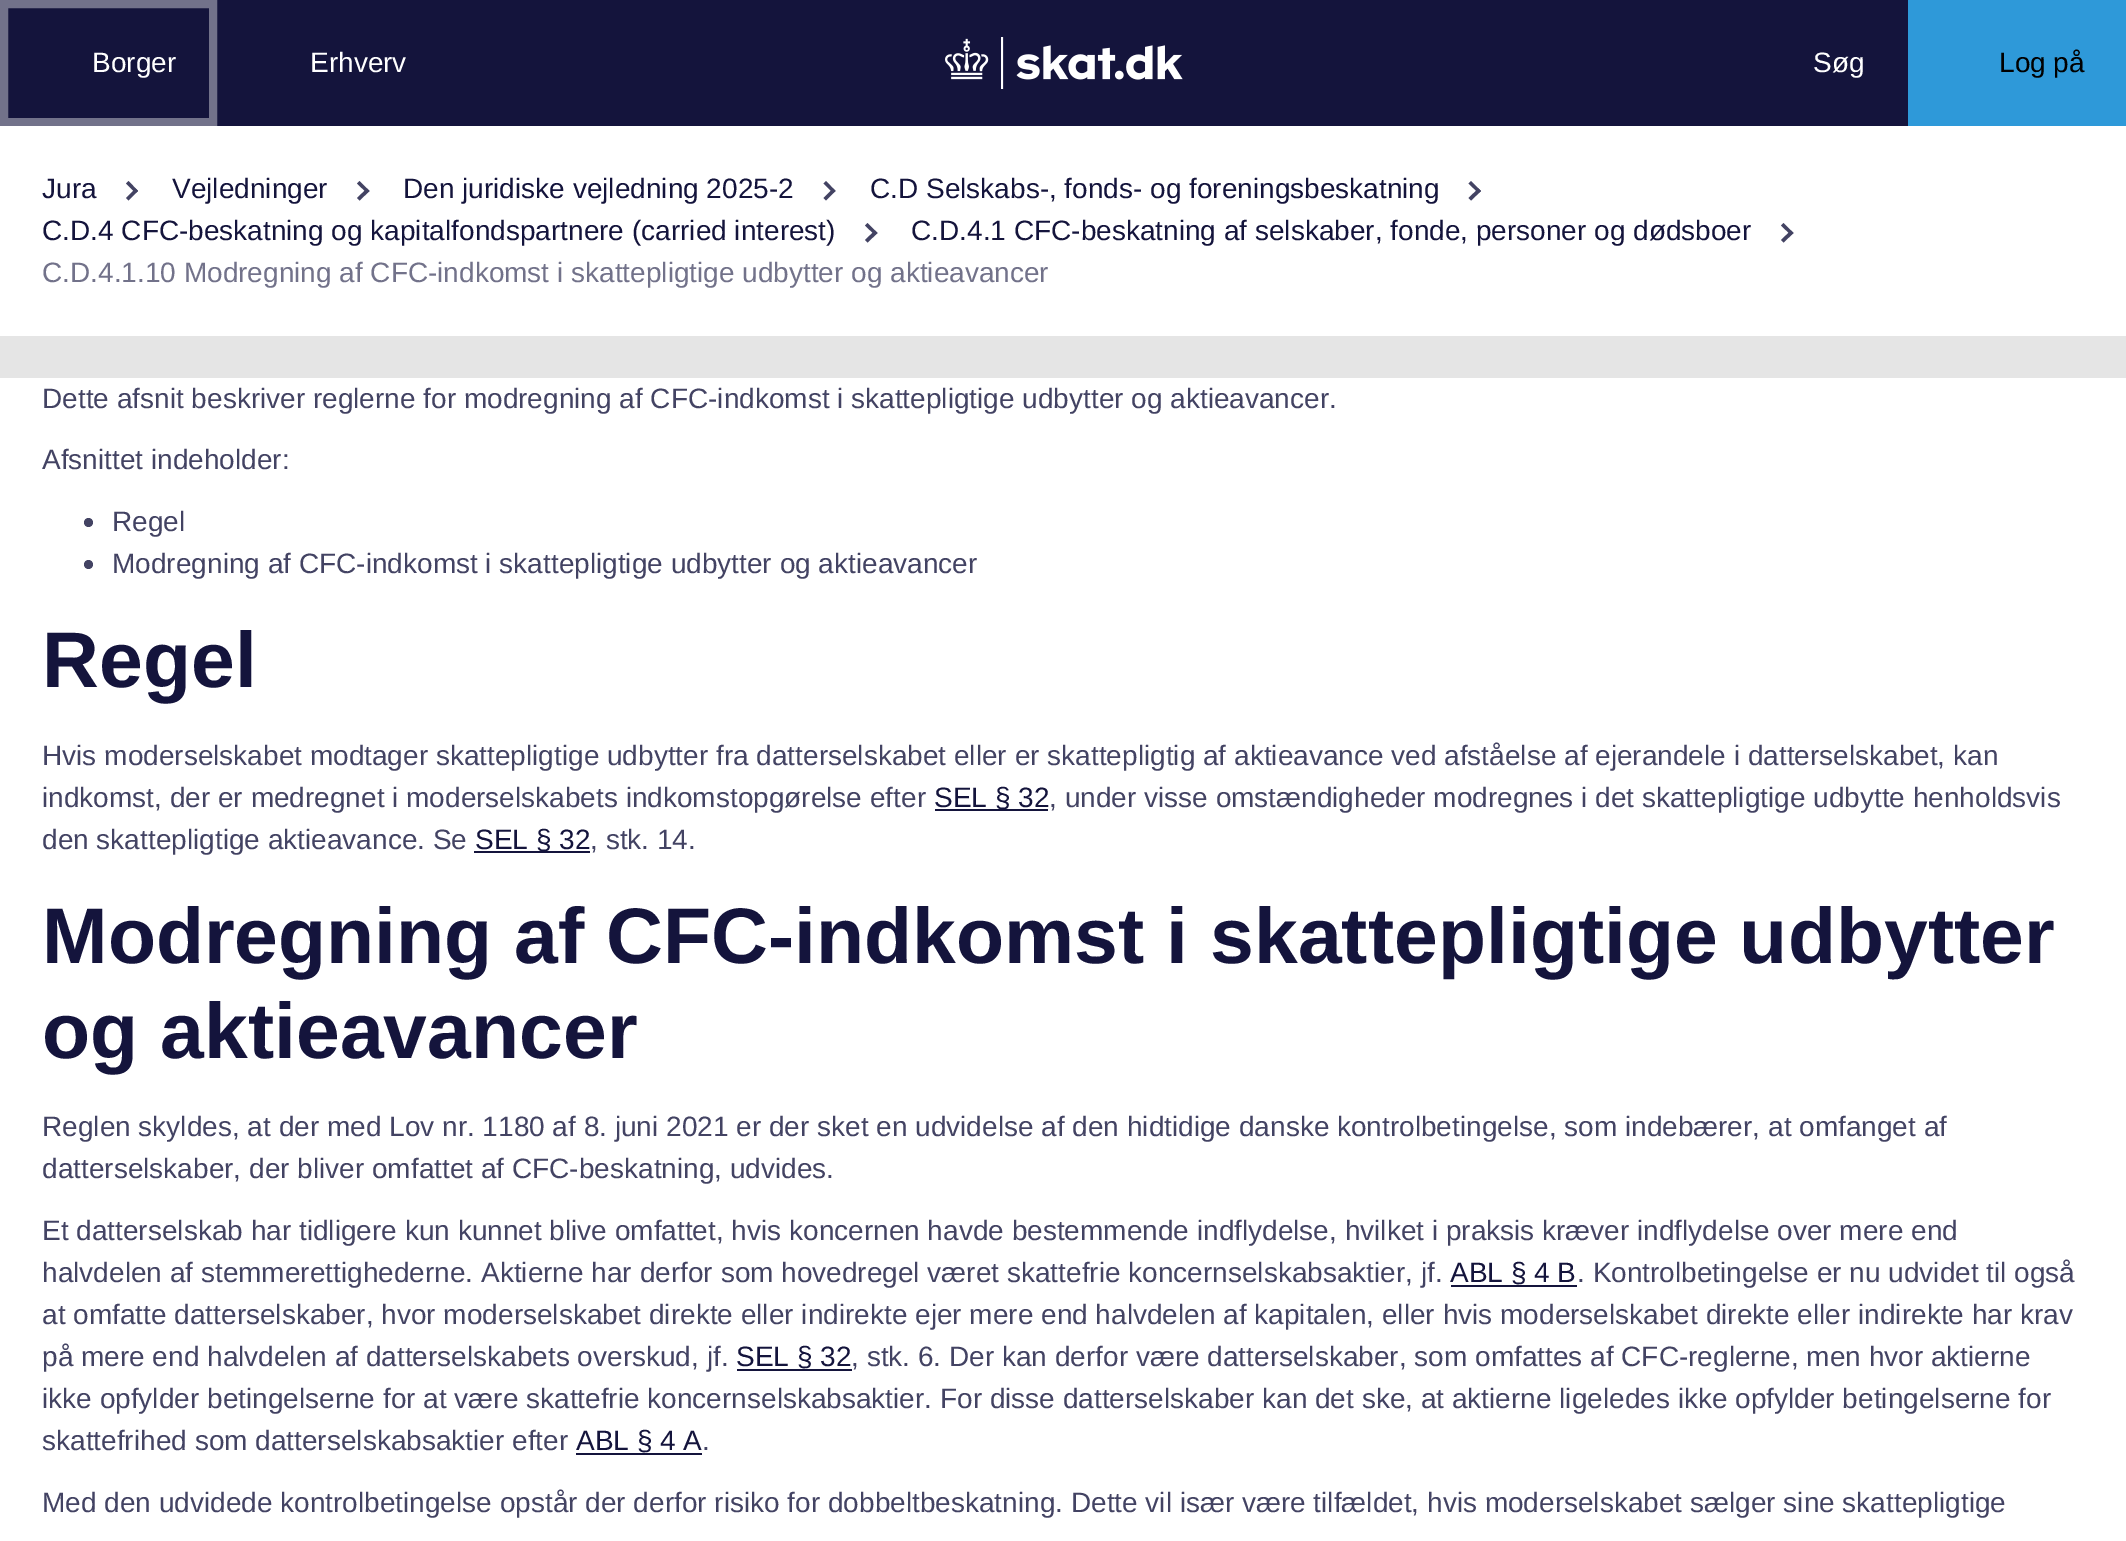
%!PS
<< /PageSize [2126 1541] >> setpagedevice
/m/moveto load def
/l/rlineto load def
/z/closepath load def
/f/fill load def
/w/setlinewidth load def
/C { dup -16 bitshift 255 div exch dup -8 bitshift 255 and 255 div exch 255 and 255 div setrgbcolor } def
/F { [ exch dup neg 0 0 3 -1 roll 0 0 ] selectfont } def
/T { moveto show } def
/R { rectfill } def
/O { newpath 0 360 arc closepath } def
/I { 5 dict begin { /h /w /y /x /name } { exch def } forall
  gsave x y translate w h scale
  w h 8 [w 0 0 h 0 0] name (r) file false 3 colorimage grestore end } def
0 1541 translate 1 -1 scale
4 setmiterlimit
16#E5E5E5 C
0 0 2126 1541 R
16#14143C C
8 0 1900 126 R
16#72728A C
8 w
4 4 209 118 rectstroke
/LiberationSans-Regular 28 F
16#FFFFFF C
(Borger) 92 72 T
(Erhverv) 310 72 T
(1.rgb) 945 37 238 52 I
(Søg) 1813 72 T
16#2E99D9 C
1908 0 218 126 R
16#000000 C
(Log på) 1999 72 T
16#FFFFFF C
0 126 2126 210 R
16#14143C C
(Jura) 42 198 T
16#434363 C
128.5 181 m 9.5 10 l -2.5 2 l -9.5 -9.5 l z f
135.5 188.5 m 2.5 2.5 l -9.5 9.5 l -2.5 -2.5 l z f
16#14143C C
(Vejledninger) 172 198 T
16#434363 C
359.5 181 m 10 10 l -2.5 2 l -10 -9.5 l z f
367 188.5 m 2.5 2.5 l -10 9.5 l -2.5 -2.5 l z f
16#14143C C
(Den juridiske vejledning 2025-2) 403 198 T
16#434363 C
826 181 m 9.5 10 l -2.5 2 l -9.5 -9.5 l z f
833 188.5 m 2.5 2.5 l -9.5 9.5 l -2.5 -2.5 l z f
16#14143C C
(C.D Selskabs-, fonds- og foreningsbeskatning) 870 198 T
16#434363 C
1471 181 m 10 10 l -2.5 2 l -10 -9.5 l z f
1478.5 188.5 m 2.5 2.5 l -10 9.5 l -2.5 -2.5 l z f
16#14143C C
(C.D.4 CFC-beskatning og kapitalfondspartnere \(carried interest\)) 42 240 T
16#434363 C
867.5 223 m 10 10 l -2.5 2 l -10 -9.5 l z f
875 230.5 m 2.5 2.5 l -10 9.5 l -2.5 -2.5 l z f
16#14143C C
(C.D.4.1 CFC-beskatning af selskaber, fonde, personer og dødsboer) 911 240 T
16#434363 C
1783.5 223 m 10 10 l -2.5 2 l -10 -9.5 l z f
1791 230.5 m 2.5 2.5 l -10 9.5 l -2.5 -2.5 l z f
16#72728A C
(C.D.4.1.10 Modregning af CFC-indkomst i skattepligtige udbytter og aktieavancer) 42 282 T
16#FFFFFF C
0 378 2126 1163 R
16#434363 C
(Dette afsnit beskriver reglerne for modregning af CFC-indkomst i skattepligtige udbytter og aktieavancer.) 42 408 T
(Afsnittet indeholder:) 42 469 T
88.5 522.5 4.5 O f
(Regel) 112 531 T
88.5 564.5 4.5 O f
(Modregning af CFC-indkomst i skattepligtige udbytter og aktieavancer) 112 573 T
/LiberationSans-Bold 78.75 F
16#14143C C
(Regel) 42 687 T
/LiberationSans-Regular 28 F
16#434363 C
(Hvis moderselskabet modtager skattepligtige udbytter fra datterselskabet eller er skattepligtig af aktieavance ved afståelse af ejerandele i datterselskabet, kan) 42 765 T
(indkomst, der er medregnet i moderselskabets indkomstopgørelse efter) 42 807 T
16#14143C C
935 809 113 2 R
(SEL § 32) 934 807 T
16#434363 C
(, under visse omstændigheder modregnes i det skattepligtige udbytte henholdsvis) 1049 807 T
(den skattepligtige aktieavance. Se) 42 849 T
16#14143C C
474 851 116 2 R
(SEL § 32) 475 849 T
16#434363 C
(, stk. 14.) 590 849 T
/LiberationSans-Bold 78.75 F
16#14143C C
(Modregning af CFC-indkomst i skattepligtige udbytter) 42 963 T
(og aktieavancer) 42 1058 T
/LiberationSans-Regular 28 F
16#434363 C
(Reglen skyldes, at der med Lov nr. 1180 af 8. juni 2021 er der sket en udvidelse af den hidtidige danske kontrolbetingelse, som indebærer, at omfanget af) 42 1136 T
(datterselskaber, der bliver omfattet af CFC-beskatning, udvides.) 42 1178 T
(Et datterselskab har tidligere kun kunnet blive omfattet, hvis koncernen havde bestemmende indflydelse, hvilket i praksis kræver indflydelse over mere end) 42 1240 T
(halvdelen af stemmerettighederne. Aktierne har derfor som hovedregel været skattefrie koncernselskabsaktier, jf.) 42 1282 T
16#14143C C
(ABL § 4 B) 1450 1282 T
1451 1285 126 2 R
16#434363 C
(. Kontrolbetingelse er nu udvidet til også) 1577 1282 T
(at omfatte datterselskaber, hvor moderselskabet direkte eller indirekte ejer mere end halvdelen af kapitalen, eller hvis moderselskabet direkte eller indirekte har krav) 42 1324 T
(på mere end halvdelen af datterselskabets overskud, jf.) 42 1366 T
16#14143C C
(SEL § 32) 736 1366 T
737 1369 115 2 R
16#434363 C
(, stk. 6. Der kan derfor være datterselskaber, som omfattes af CFC-reglerne, men hvor aktierne) 851 1366 T
(ikke opfylder betingelserne for at være skattefrie koncernselskabsaktier. For disse datterselskaber kan det ske, at aktierne ligeledes ikke opfylder betingelserne for) 42 1408 T
(skattefrihed som datterselskabsaktier efter) 42 1450 T
16#14143C C
(ABL § 4 A) 576 1450 T
576 1453 126 2 R
16#434363 C
(.) 702 1450 T
(Med den udvidede kontrolbetingelse opstår der derfor risiko for dobbeltbeskatning. Dette vil især være tilfældet, hvis moderselskabet sælger sine skattepligtige) 42 1512 T
showpage
